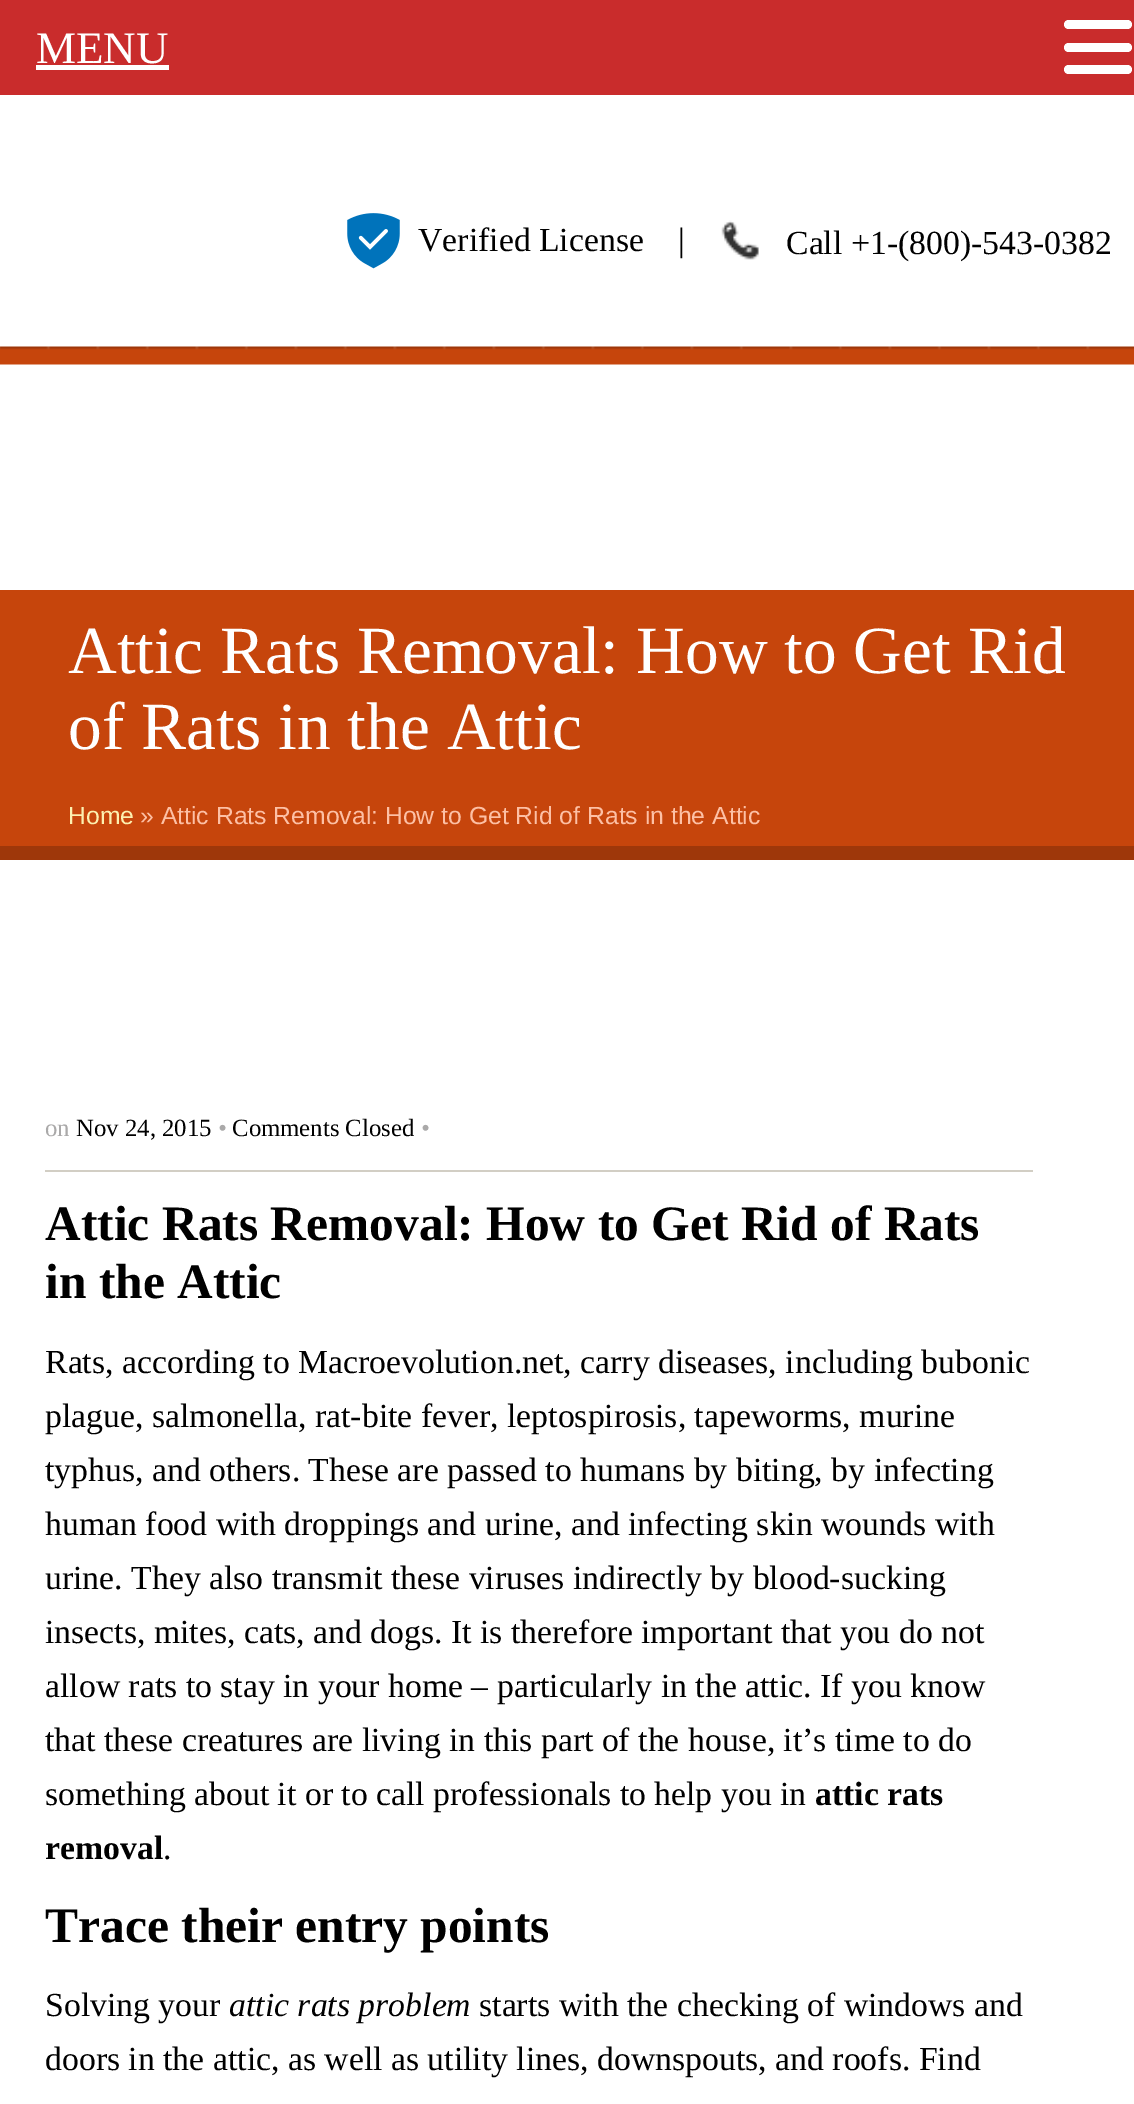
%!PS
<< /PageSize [1134 2104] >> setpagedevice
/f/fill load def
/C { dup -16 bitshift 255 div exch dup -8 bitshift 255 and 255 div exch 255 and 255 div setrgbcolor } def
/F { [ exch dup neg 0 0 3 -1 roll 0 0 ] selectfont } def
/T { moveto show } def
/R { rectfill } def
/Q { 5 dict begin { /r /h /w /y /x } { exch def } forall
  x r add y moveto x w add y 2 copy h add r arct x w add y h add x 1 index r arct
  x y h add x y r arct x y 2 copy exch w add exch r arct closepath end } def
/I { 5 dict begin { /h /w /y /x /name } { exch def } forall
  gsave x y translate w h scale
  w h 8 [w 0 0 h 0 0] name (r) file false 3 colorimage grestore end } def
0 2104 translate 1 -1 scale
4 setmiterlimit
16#FFFFFF C
0 0 1134 2104 R
16#C92C2C C
0 0 1134 95 R
/LiberationSerif-Regular 45 F
16#FFFFFF C
(MENU) 36 63 T
36 65 133 5 R
1064 20 68 9 4.5 Q f
1064 43 68 9 4.5 Q f
1064 65 68 9 4.5 Q f
(1.rgb) 0 346 1134 19 I
(2.rgb) 347 213 53 56 I
/LiberationSerif-Regular 33.75 F
16#000000 C
(Verified License) 418 251 T
(|) 678 251 T
(3.rgb) 721 220 38 40 I
(Call +1-\(800\)-543-0382) 786 254 T
16#C6450C C
0 590 1134 256 R
16#9E370A C
0 846 1134 14 R
/LiberationSerif-Regular 67.5 F
16#FFFFFF C
(Attic Rats Removal: How to Get Rid) 68 673 T
(of Rats in the Attic) 68 749 T
/LiberationSans-Regular 24.75 F
16#FDF0B0 C
(Home) 68 824 T
16#FDC0A5 C
(» Attic Rats Removal: How to Get Rid of Rats in the Attic) 140 824 T
16#D2CEC4 C
45 1170 988 2 R
/LiberationSerif-Regular 24.75 F
16#AAA9A9 C
(on) 45 1136 T
16#000000 C
(Nov 24, 2015) 76 1136 T
/LiberationSerif-Italic 24.75 F
16#AAA9A9 C
(•) 218 1136 T
/LiberationSerif-Regular 24.75 F
16#000000 C
(Comments Closed) 232 1136 T
/LiberationSerif-Italic 24.75 F
16#AAA9A9 C
(•) 421 1136 T
/LiberationSerif-Bold 49.5 F
16#000000 C
(Attic Rats Removal: How to Get Rid of Rats) 45 1240 T
(in the Attic) 45 1298 T
/LiberationSerif-Regular 33.75 F
(Rats, according to Macroevolution.net, carry diseases, including bubonic) 45 1373 T
(plague, salmonella, rat-bite fever, leptospirosis, tapeworms, murine) 45 1427 T
(typhus, and others. These are passed to humans by biting, by infecting) 45 1481 T
(human food with droppings and urine, and infecting skin wounds with) 45 1535 T
(urine. They also transmit these viruses indirectly by blood-sucking) 45 1589 T
(insects, mites, cats, and dogs. It is therefore important that you do not) 45 1643 T
(allow rats to stay in your home – particularly in the attic. If you know) 45 1697 T
(that these creatures are living in this part of the house, it’s time to do) 45 1751 T
(something about it or to call professionals to help you in) 45 1805 T
/LiberationSerif-Bold 33.75 F
(attic rats) 815 1805 T
(removal) 45 1859 T
/LiberationSerif-Regular 33.75 F
(.) 163 1859 T
/LiberationSerif-Bold 49.5 F
(Trace their entry points) 45 1942 T
/LiberationSerif-Regular 33.75 F
(Solving your) 45 2016 T
/LiberationSerif-Italic 33.75 F
(attic rats problem) 229 2016 T
/LiberationSerif-Regular 33.75 F
(starts with the checking of windows and) 479 2016 T
(doors in the attic, as well as utility lines, downspouts, and roofs. Find) 45 2070 T
showpage
